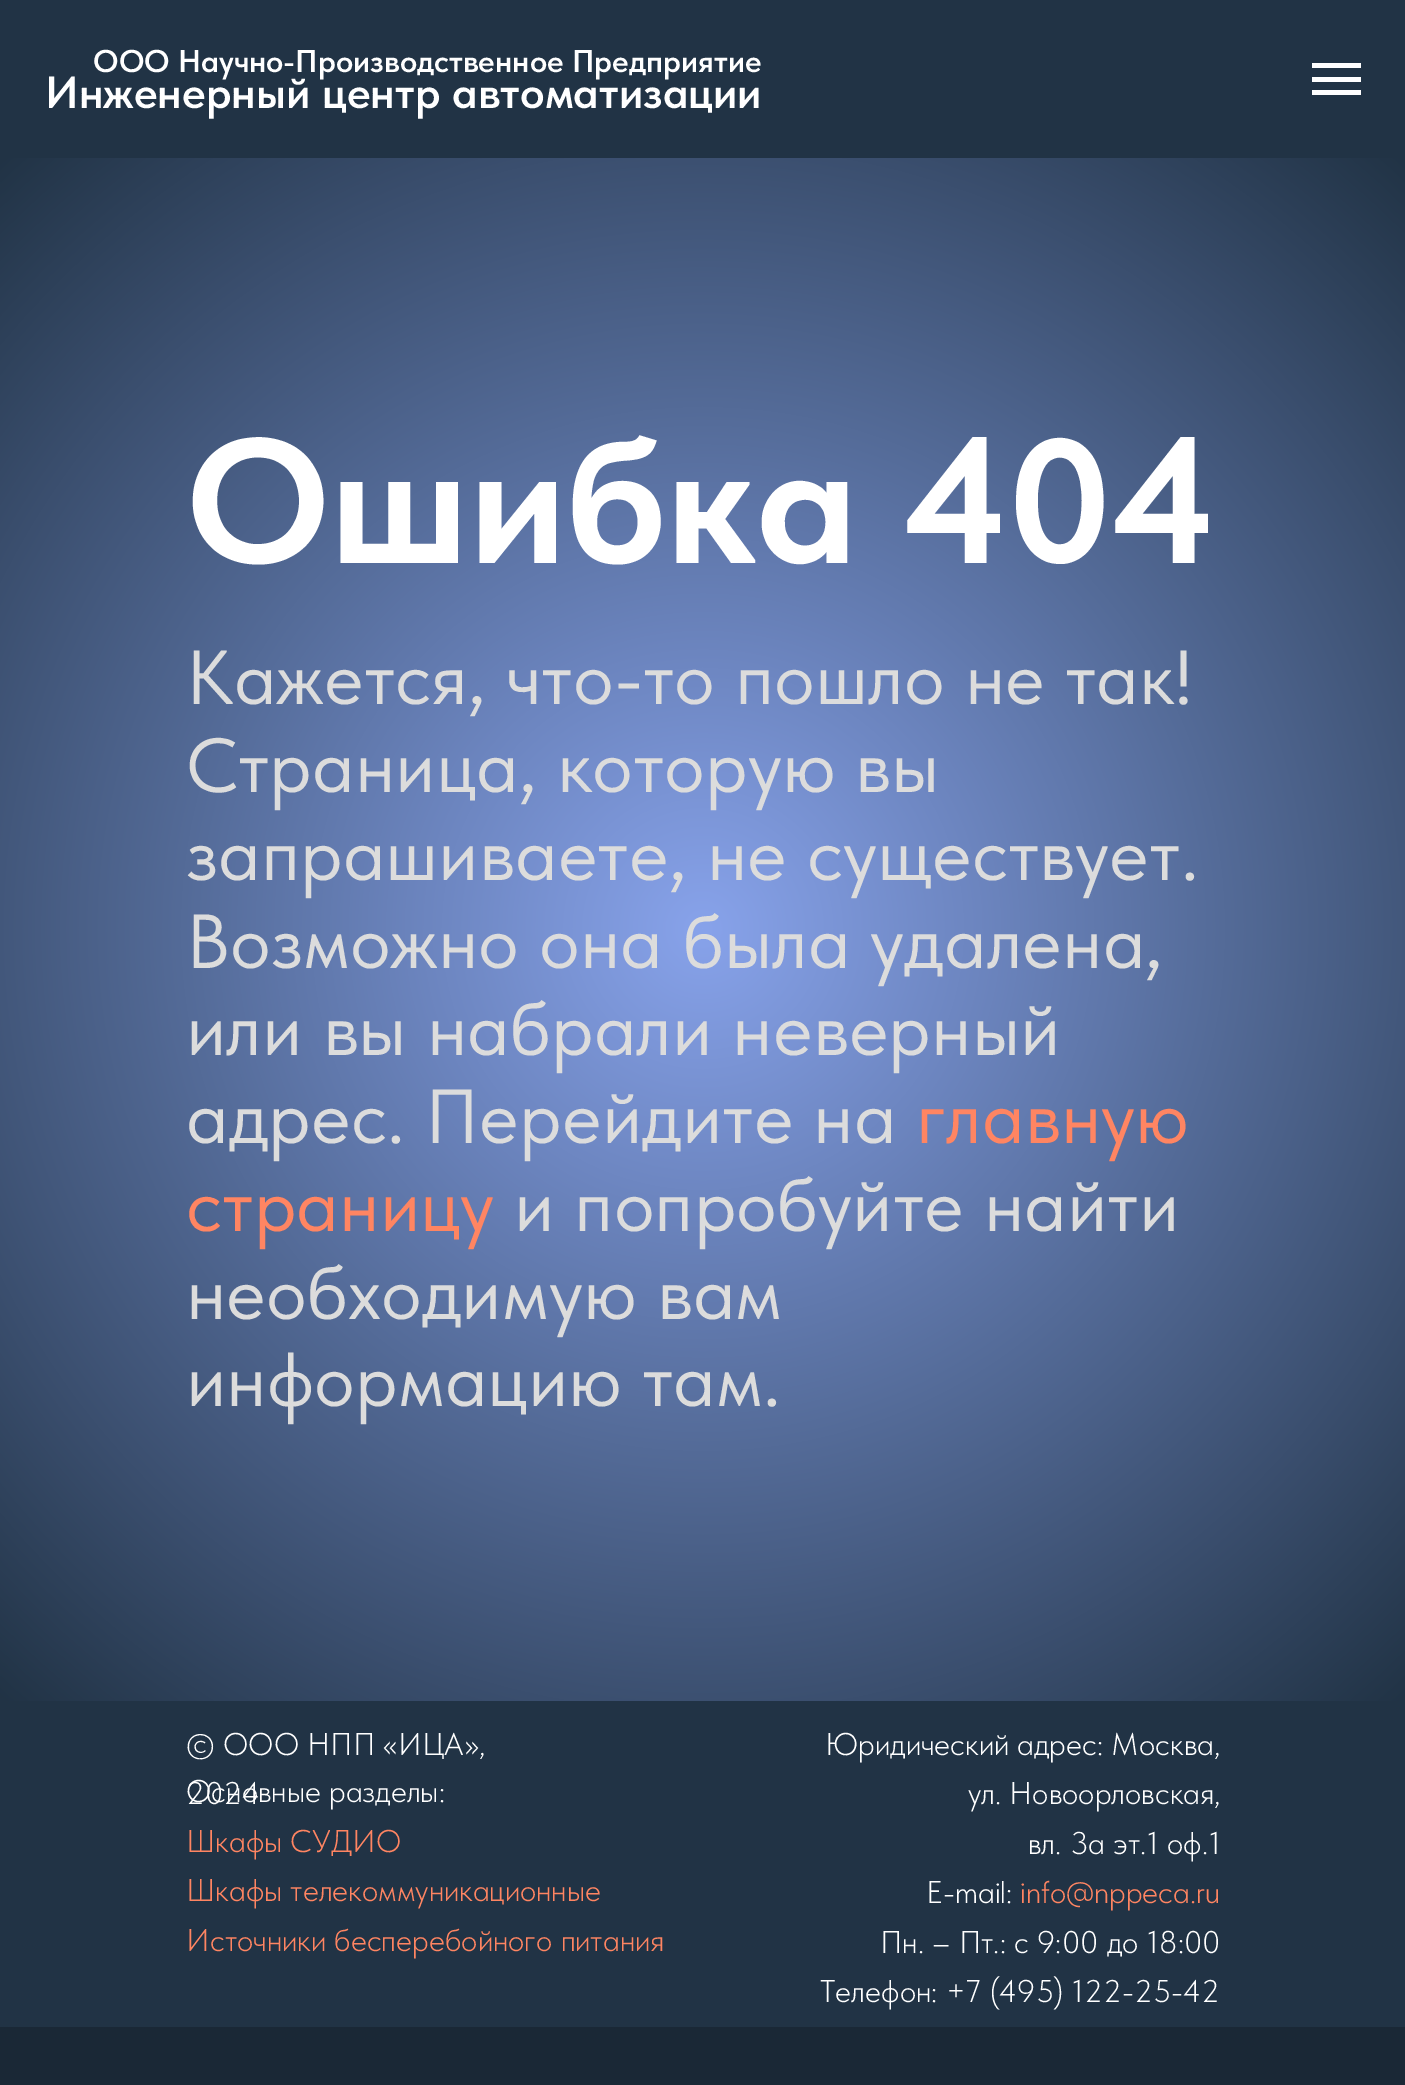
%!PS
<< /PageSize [1405 2085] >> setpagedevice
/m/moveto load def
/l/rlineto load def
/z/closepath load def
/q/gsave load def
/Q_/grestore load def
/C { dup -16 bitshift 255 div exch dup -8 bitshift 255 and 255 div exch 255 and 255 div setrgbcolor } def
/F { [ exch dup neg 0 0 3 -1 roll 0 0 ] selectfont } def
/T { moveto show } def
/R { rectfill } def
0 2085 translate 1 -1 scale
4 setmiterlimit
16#FFFFFF C
0 0 1405 2085 R
16#213345 C
0 0 1405 158 R
/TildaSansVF-SemiBold 31.5 F
16#FFFFFF C
(ООО Научно-Производственное Предприятие) 93 72 T
/TildaSansVF-SemiBold 45 F
(Инженерный центр автоматизации) 45 108 T
1312 63 49 5 R
1312 77 49 5 R
1312 90 49 5 R
q 0 158 m 1405 0 l 0 1543 l -1405 0 l z clip newpath 703 929 translate 1044 1044 scale
<< /ShadingType 3 /ColorSpace /DeviceRGB /Coords [0 0 0 0 0 1] /Extend [true true] /Function << /FunctionType 2 /Domain [0 1] /C0 [.533 .639 .922] /C1 [.129 .2 .271] /N 1 >> >> shfill Q_
/TildaSansVF-Bold 177.75 F
(Ошибка 404) 186 563 T
/TildaSansVF-Regular 76.5 F
16#DCDCDC C
(Кажется, что-то пошло не так!) 186 704 T
(Страница, которую вы) 186 792 T
(запрашиваете, не существует.) 186 880 T
(Возможно она была удалена,) 186 968 T
(или вы набрали неверный) 186 1055 T
(адрес. Перейдите на) 186 1143 T
16#FF8562 C
(главную) 916 1143 T
(страницу) 186 1231 T
16#DCDCDC C
(и попробуйте найти) 514 1231 T
(необходимую вам) 186 1319 T
(информацию там.) 186 1406 T
16#213345 C
0 1701 1405 326 R
/TildaSansVF-Light 31.5 F
16#FFFFFF C
(© ООО НПП «ИЦА»,) 186 1755 T
(2024) 186 1804 T
(Юридический адрес: Москва,) 825 1755 T
(ул. Новоорловская,) 968 1804 T
(вл. 3а эт.1 оф.1) 1028 1854 T
(E-mail:) 926 1903 T
16#FF8562 C
(info@nppeca.ru) 1020 1903 T
16#FFFFFF C
(Пн. – Пт.: с 9:00 до 18:00) 880 1953 T
(Телефон: +7 \(495\) 122-25-42) 820 2002 T
(Основные разделы:) 186 1802 T
16#FF8562 C
(Шкафы СУДИО) 186 1852 T
(Шкафы телекоммуникационные) 186 1901 T
(Источники бесперебойного питания) 186 1951 T
16#1A2836 C
0 2027 1405 58 R
showpage
